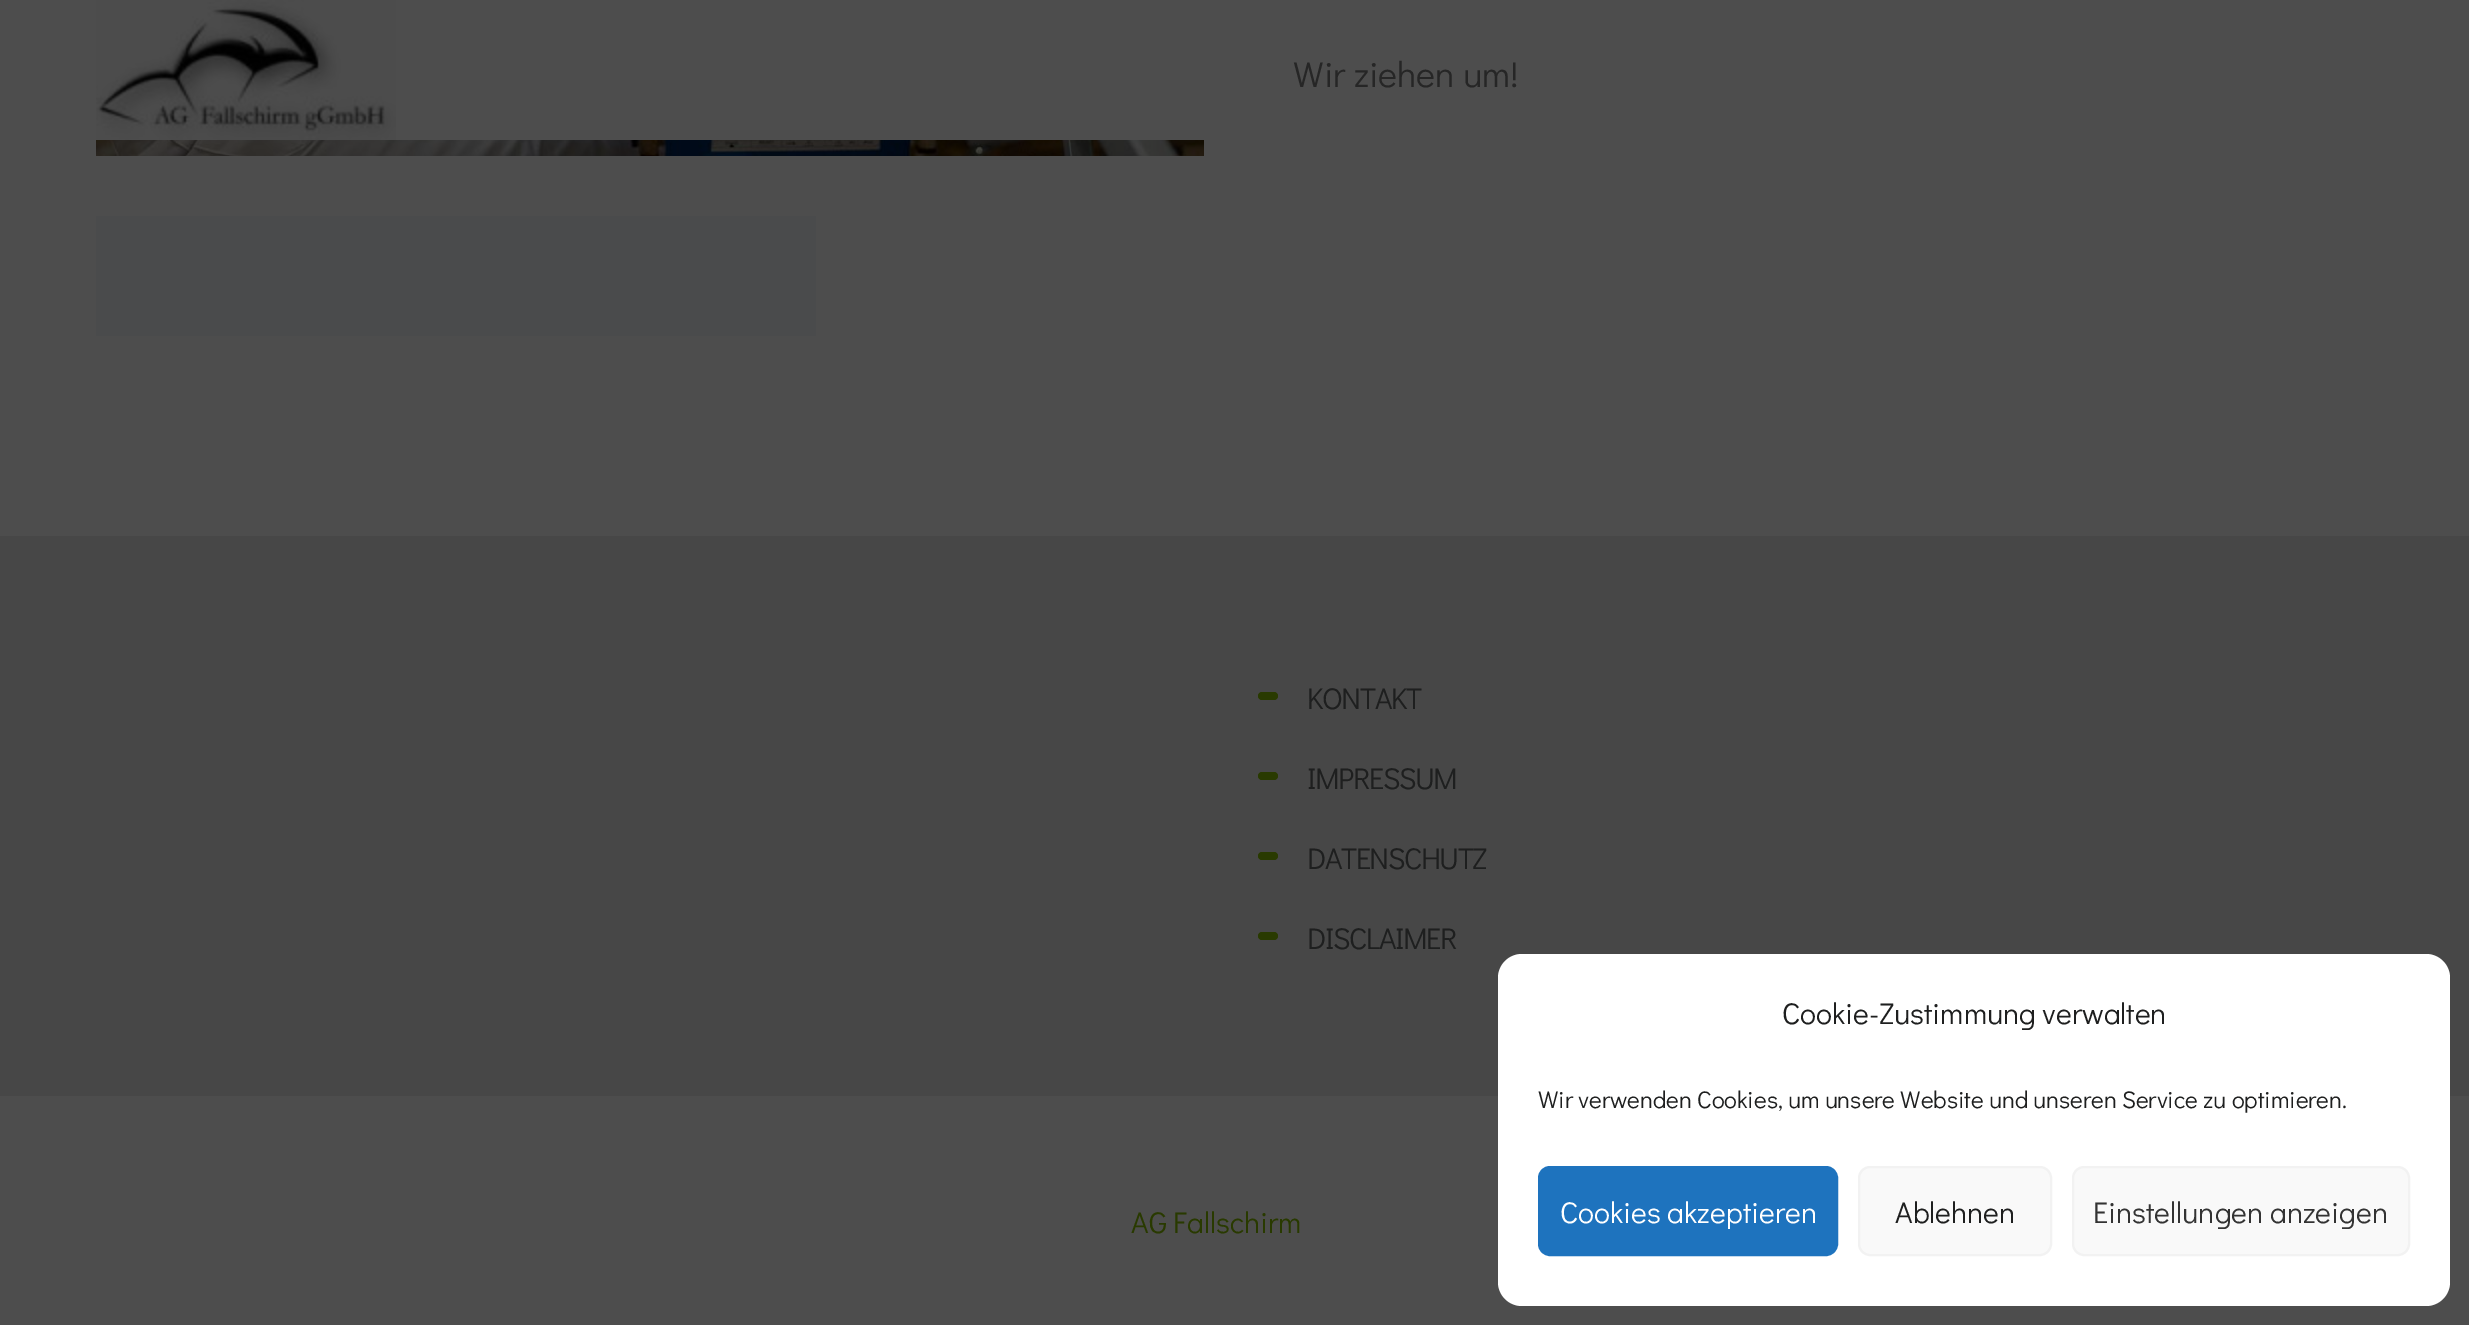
%!PS
<< /PageSize [2469 1325] >> setpagedevice
/m/moveto load def
/f/fill load def
/s/stroke load def
/q/gsave load def
/Q_/grestore load def
/w/setlinewidth load def
/C { dup -16 bitshift 255 div exch dup -8 bitshift 255 and 255 div exch 255 and 255 div setrgbcolor } def
/F { [ exch dup neg 0 0 3 -1 roll 0 0 ] selectfont } def
/T { moveto show } def
/R { rectfill } def
/Q { 5 dict begin { /r /h /w /y /x } { exch def } forall
  x r add y moveto x w add y 2 copy h add r arct x w add y h add x 1 index r arct
  x y h add x y r arct x y 2 copy exch w add exch r arct closepath end } def
/I { 5 dict begin { /h /w /y /x /name } { exch def } forall
  gsave x y translate w h scale
  w h 8 [w 0 0 h 0 0] name (r) file false 3 colorimage grestore end } def
0 1325 translate 1 -1 scale
4 setmiterlimit
16#4D4D4D C
0 0 2469 1325 R
(1.rgb) 96 0 300 140 I
/DidactGothic-Regular 36 F
16#262626 C
(Wir ziehen um!) 1293 87 T
(2.rgb) 96 140 1108 16 I
16#4A4B4C C
96 216 720 120 R
16#474747 C
0 536 2469 560 R
16#293A00 C
1258 692 20 8 4 Q f
/DidactGothic-Regular 30 F
16#1E1F1F C
1307 709 m -1.4 0 (KONTAKT) ashow
16#293A00 C
1258 772 20 8 4 Q f
16#1E1F1F C
1307 789 m -1.4 0 (IMPRESSUM) ashow
16#293A00 C
1258 852 20 8 4 Q f
16#1E1F1F C
1307 869 m -1.4 0 (DATENSCHUTZ) ashow
16#293A00 C
1258 932 20 8 4 Q f
16#1E1F1F C
1307 949 m -1.4 0 (DISCLAIMER) ashow
16#293A00 C
(AG Fallschirm) 1131 1233 T
16#FFFFFF C
1498 954 952 352 24 Q f
16#1E1F1F C
(Cookie-Zustimmung verwalten) 1782 1024 T
/DidactGothic-Regular 24 F
(Wir verwenden Cookies, um unsere Website und unseren Service zu optimieren.) 1538 1108 T
16#1E73BE C
1539 1167 298 88 11 Q q f Q_
2 w
s
/DidactGothic-Regular 30 F
16#FFFFFF C
(Cookies akzeptieren) 1560 1223 T
16#F9F9F9 C
1859 1167 192 88 11 Q q f Q_
16#F2F2F2 C
s
16#1E1F1F C
(Ablehnen) 1895 1223 T
16#F9F9F9 C
2073 1167 336 88 11 Q q f Q_
16#F2F2F2 C
s
16#333333 C
(Einstellungen anzeigen) 2093 1223 T
showpage
